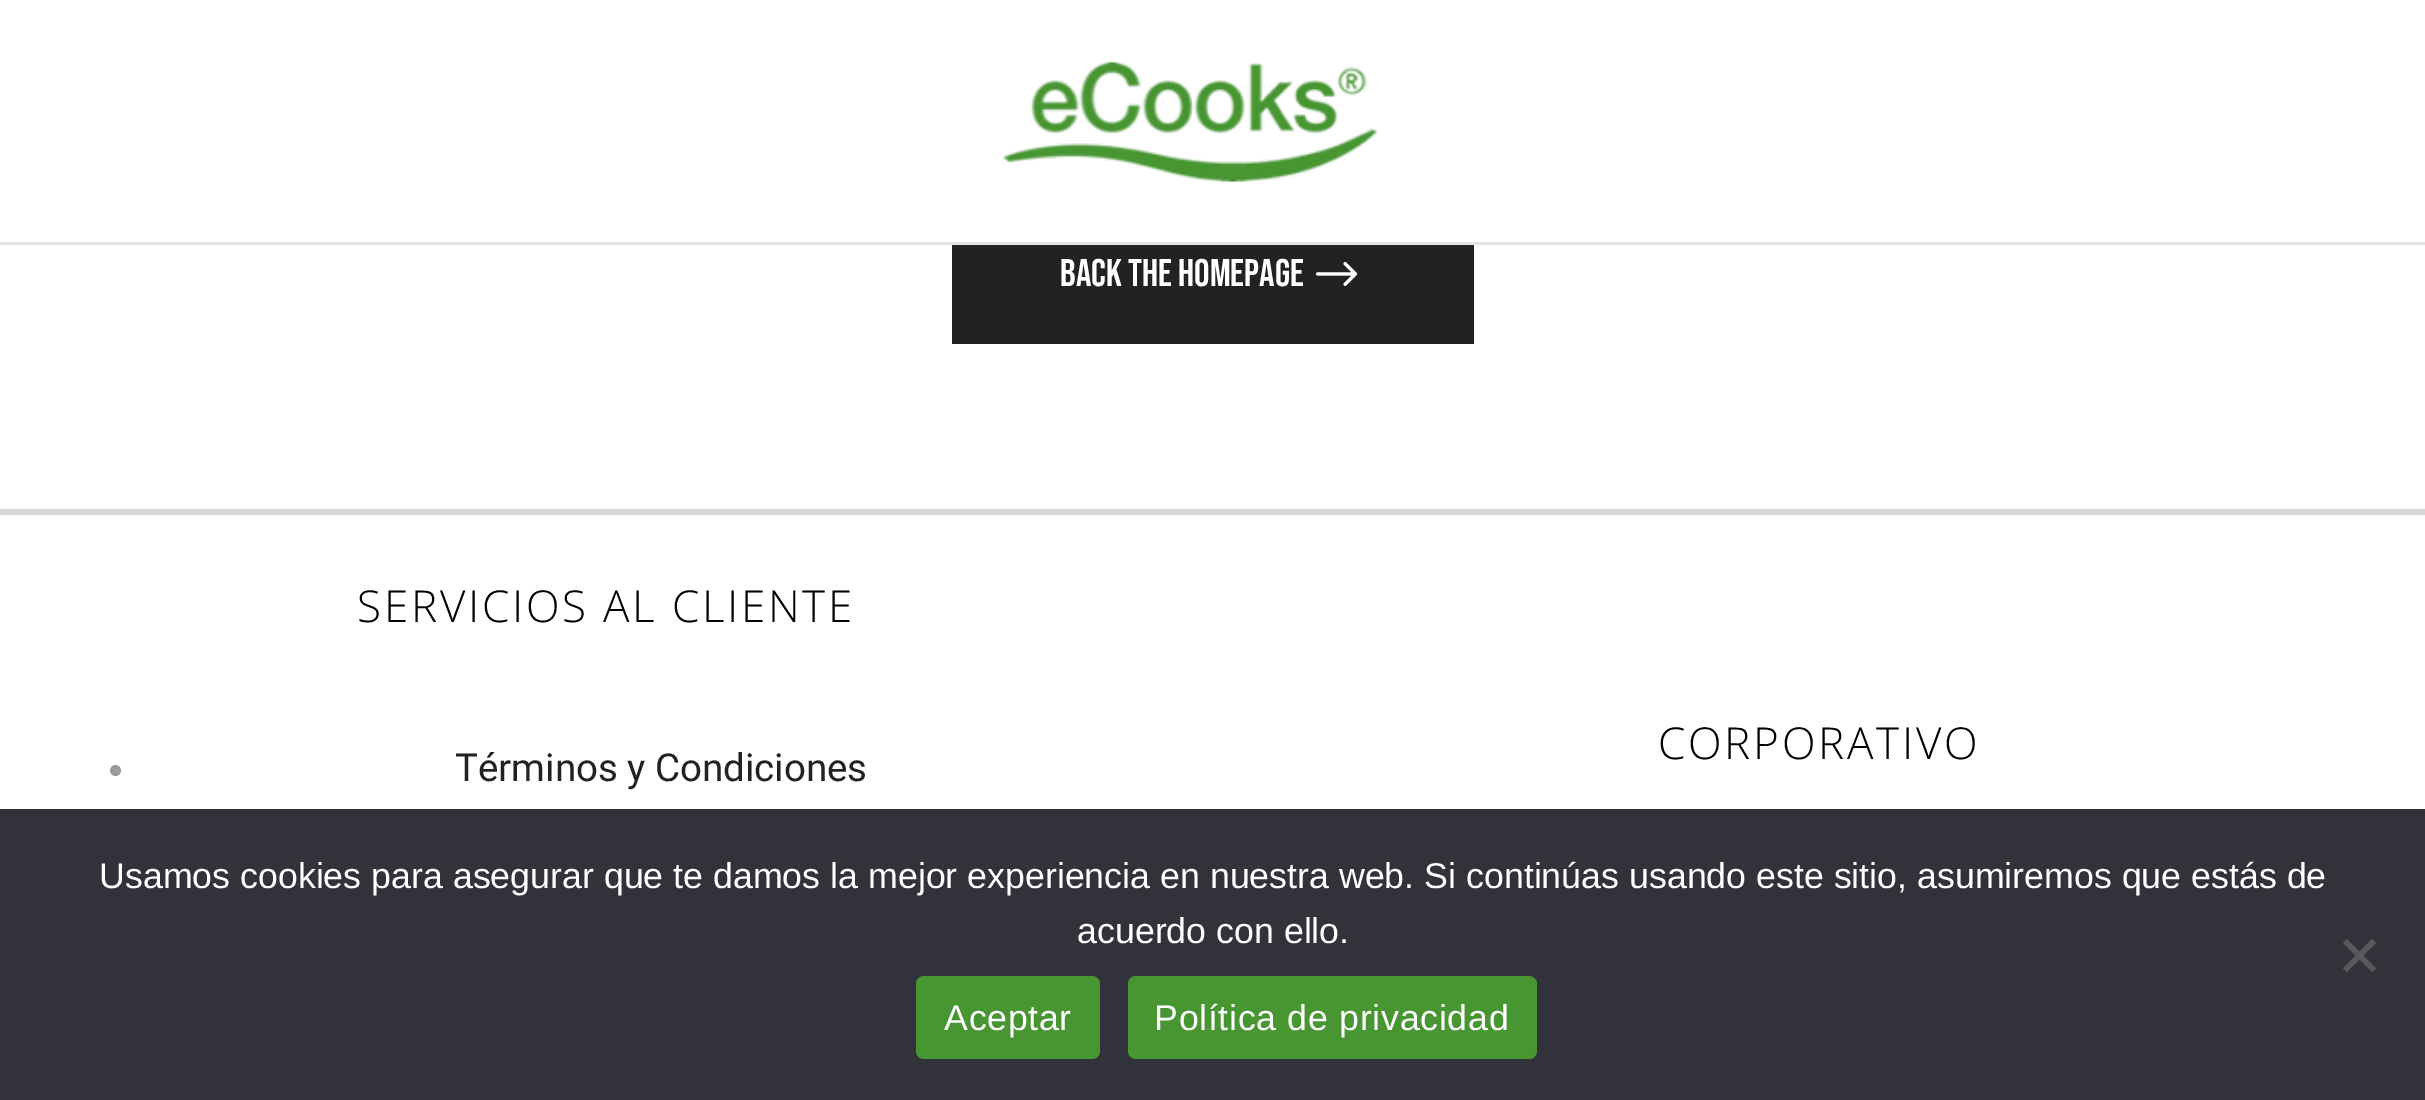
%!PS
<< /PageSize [2425 1100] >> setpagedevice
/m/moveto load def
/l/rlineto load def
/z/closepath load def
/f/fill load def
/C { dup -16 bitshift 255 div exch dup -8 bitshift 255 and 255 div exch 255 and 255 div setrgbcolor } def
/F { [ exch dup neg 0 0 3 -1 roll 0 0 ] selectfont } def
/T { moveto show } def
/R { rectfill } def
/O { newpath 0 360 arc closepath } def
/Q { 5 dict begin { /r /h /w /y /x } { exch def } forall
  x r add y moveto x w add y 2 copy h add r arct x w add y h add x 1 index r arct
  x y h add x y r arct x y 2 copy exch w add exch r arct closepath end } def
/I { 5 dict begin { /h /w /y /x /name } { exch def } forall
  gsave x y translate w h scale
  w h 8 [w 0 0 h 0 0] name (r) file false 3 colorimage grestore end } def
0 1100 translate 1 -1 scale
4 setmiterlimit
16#FFFFFF C
0 0 2425 1100 R
16#E5E5E5 C
0 242 2425 3 R
(1.rgb) 1003 61 375 121 I
16#222222 C
952 245 522 99 R
/BebasNeue-Regular 38.5 F
16#FFFFFF C
(Back The Homepage) 1060 286 T
(2.rgb) 1315 262 43 24 I
16#D6D4D4 C
0 509 2425 6 R
/OpenSans-Light 44 F
16#000000 C
357 622 m 2.75 0 (SERVICIOS AL CLIENTE) ashow
16#9B9B9B C
115.5 770.5 5.5 O f
/Roboto-Regular 38.5 F
16#222222 C
(Términos y Condiciones) 455 781 T
/OpenSans-Light 44 F
16#000000 C
1658 759 m 2.75 0 (CORPORATIVO) ashow
16#32323A C
0 809 2425 291 R
/LiberationSans-Regular 35.75 F
16#FFFFFF C
(Usamos cookies para asegurar que te damos la mejor experiencia en nuestra web. Si continúas usando este sitio, asumiremos que estás de) 99 888 T
(acuerdo con ello.) 1077 943 T
16#59595D C
2372 939 m 4 4 l -29 29 l -4 -3.5 l z f
2343 943 m 4 -4 l 29 29.5 l -4 3.5 l z f
16#479632 C
916 976 184 83 8 Q f
16#FFFFFF C
944 1030 m .7 0 (Aceptar) ashow
16#479632 C
1128 976 409 83 8 Q f
16#FFFFFF C
1154 1030 m .7 0 (Política de privacidad) ashow
showpage
